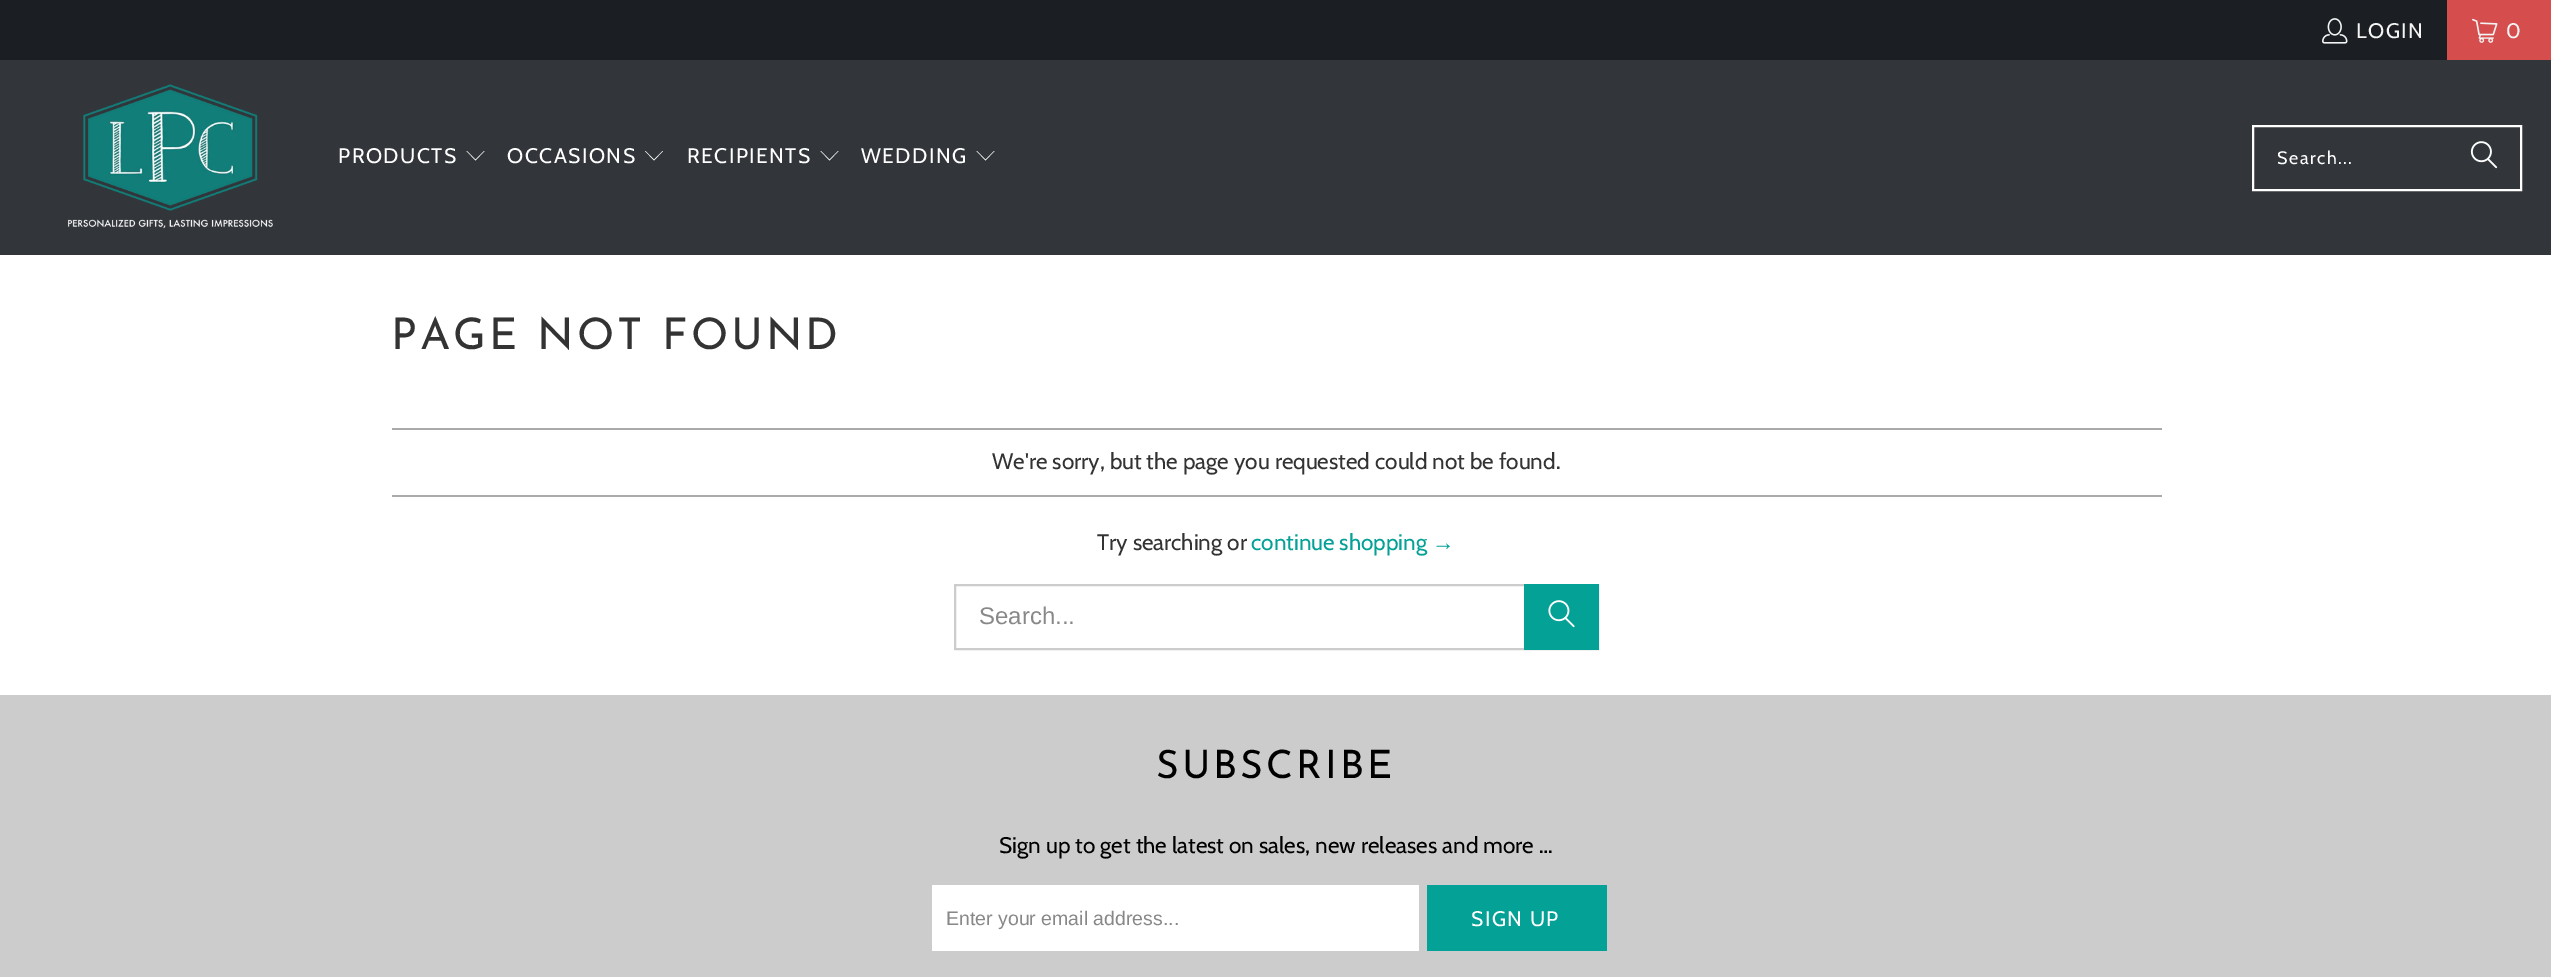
%!PS
<< /PageSize [2551 977] >> setpagedevice
/m/moveto load def
/l/rlineto load def
/z/closepath load def
/f/fill load def
/w/setlinewidth load def
/C { dup -16 bitshift 255 div exch dup -8 bitshift 255 and 255 div exch 255 and 255 div setrgbcolor } def
/F { [ exch dup neg 0 0 3 -1 roll 0 0 ] selectfont } def
/T { moveto show } def
/R { rectfill } def
/I { 5 dict begin { /h /w /y /x /name } { exch def } forall
  gsave x y translate w h scale
  w h 8 [w 0 0 h 0 0] name (r) file false 3 colorimage grestore end } def
0 977 translate 1 -1 scale
4 setmiterlimit
16#FFFFFF C
0 0 2551 977 R
16#1B1F23 C
0 0 2447 60 R
(1.rgb) 2322 18 26 26 I
/Cabin-Regular 21 F
16#F4F4F4 C
2356 38 m 1.5 0 (LOGIN) ashow
16#D54D4D C
2447 0 104 60 R
(2.rgb) 2472 18 26 25 I
16#F4F4F4 C
2506 38 m 1.5 0 (0) ashow
16#323539 C
0 60 2551 195 R
(3.rgb) 68 84 205 145 I
16#FFFFFF C
338 163 m 1.5 0 (PRODUCTS) ashow
475.5 160.5 m -9 -9.5 l .5 0 l 8.5 8.5 l 8.5 -8.5 l .5 0 l z f
507 163 m 1.5 0 (OCCASIONS) ashow
654 160.5 m -9 -9.5 l .5 0 l 8.5 8.5 l 8.5 -8.5 l .5 0 l z f
687 163 m 1.5 0 (RECIPIENTS) ashow
829.5 160.5 m -9 -9.5 l .5 0 l 8.5 8.5 l 8.5 -8.5 l .5 0 l z f
861 163 m 1.5 0 (WEDDING) ashow
985.5 160.5 m -9 -9.5 l .5 0 l 8.5 8.5 l 8.5 -8.5 l .5 0 l z f
2 w
2253 126 268 64 rectstroke
/Cabin-Regular 18 F
2277 164 m 1.5 0 (Search...) ashow
(4.rgb) 2470 141 28 28 I
/JosefinSans-Regular 43.5 F
16#333333 C
391 349 m 3 0 (PAGE NOT FOUND) ashow
16#AAAAAA C
392 428 1770 2 R
392 495 1770 2 R
/Cabin-Regular 22.5 F
16#333333 C
(We're sorry, but the page you requested could not be found.) 992 469 T
(Try searching or) 1097 550 T
16#03A196 C
(continue shopping) 1251 550 T
/LiberationSans-Regular 22.5 F
(→) 1432 550 T
16#CCCCCC C
955 585 643 64 rectstroke
/LiberationSans-Regular 24 F
16#888888 C
(Search...) 979 624 T
16#03A196 C
1524 584 75 66 R
(5.rgb) 1548 600 27 28 I
16#CCCCCC C
0 695 2551 282 R
/JosefinSans-Regular 39 F
16#000000 C
1156 778 m 3 0 (SUBSCRIBE) ashow
/Cabin-Regular 22.5 F
(Sign up to get the latest on sales, new releases and more …) 999 853 T
16#FFFFFF C
932 885 487 66 R
/LiberationSans-Regular 19.5 F
16#888888 C
(Enter your email address...) 946 925 T
16#03A196 C
1427 885 180 66 R
/Cabin-Regular 21 F
16#FFFFFF C
1471 926 m 1.5 0 (SIGN UP) ashow
showpage
